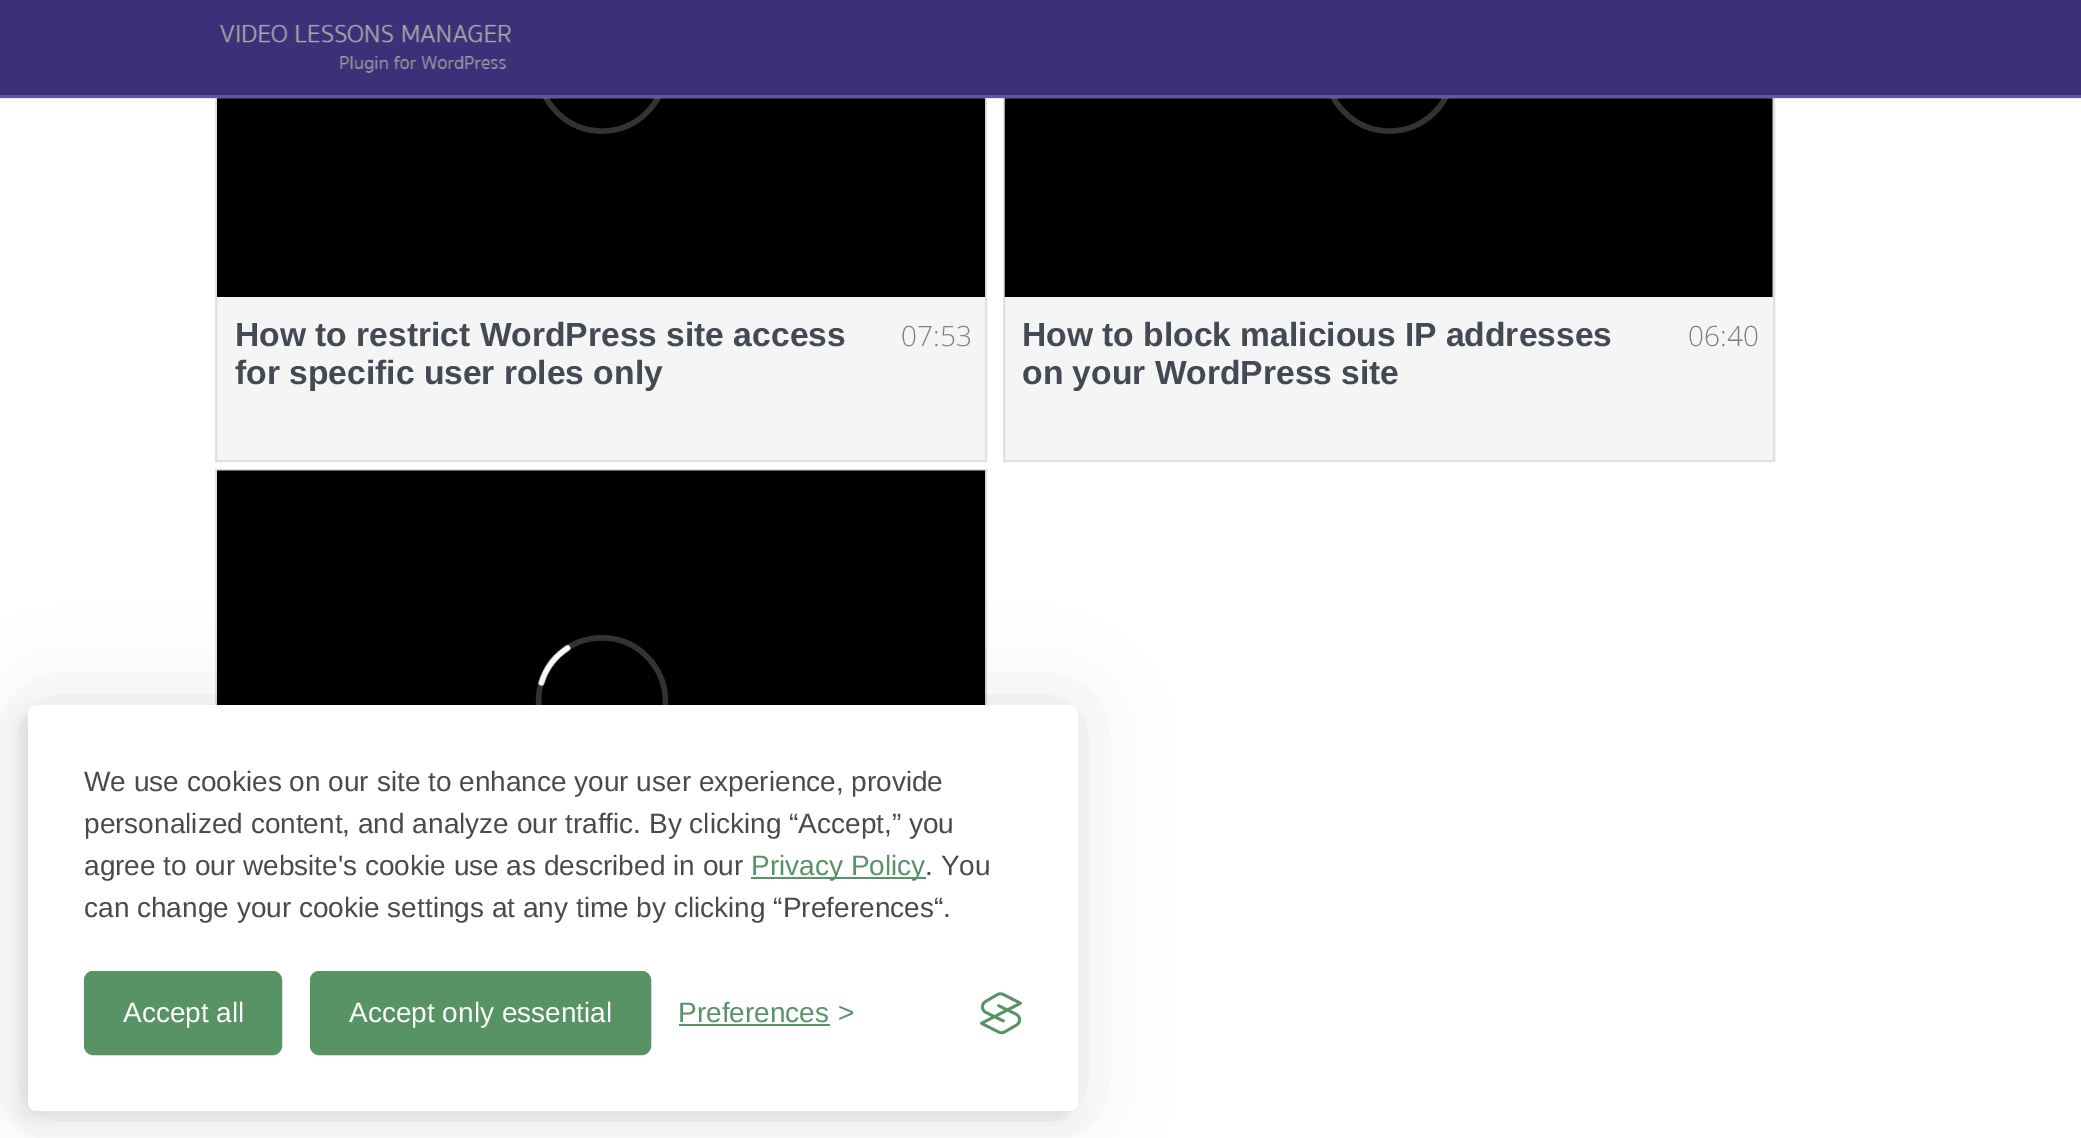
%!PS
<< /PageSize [2081 1138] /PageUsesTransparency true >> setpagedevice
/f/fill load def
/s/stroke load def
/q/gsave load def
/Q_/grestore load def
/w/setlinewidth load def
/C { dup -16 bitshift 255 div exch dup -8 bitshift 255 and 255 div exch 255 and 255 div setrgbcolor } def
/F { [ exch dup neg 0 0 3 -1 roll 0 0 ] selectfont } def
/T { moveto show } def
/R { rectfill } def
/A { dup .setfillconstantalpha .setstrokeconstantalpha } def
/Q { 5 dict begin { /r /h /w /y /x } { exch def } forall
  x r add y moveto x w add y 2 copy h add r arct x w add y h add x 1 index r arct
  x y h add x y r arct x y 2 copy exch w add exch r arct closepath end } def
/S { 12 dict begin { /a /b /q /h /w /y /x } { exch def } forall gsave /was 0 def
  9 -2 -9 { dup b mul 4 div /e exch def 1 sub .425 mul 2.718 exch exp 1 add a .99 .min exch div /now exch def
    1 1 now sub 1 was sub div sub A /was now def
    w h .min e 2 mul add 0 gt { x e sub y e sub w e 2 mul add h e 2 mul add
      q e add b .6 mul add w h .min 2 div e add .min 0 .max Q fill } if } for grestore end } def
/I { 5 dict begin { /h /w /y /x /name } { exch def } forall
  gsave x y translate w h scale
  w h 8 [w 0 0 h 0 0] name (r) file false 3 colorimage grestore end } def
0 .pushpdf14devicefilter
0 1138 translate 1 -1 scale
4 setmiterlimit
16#FFFFFF C
0 0 2081 1138 R
16#F5F5F5 C
217 297 768 163 R
16#E0E0E0 C
2 w
216 -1 770 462 rectstroke
16#F5F5F5 C
1005 98 768 362 R
16#E0E0E0 C
1004 -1 770 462 rectstroke
16#3D3078 C
0 0 2081 98 R
(2.rgb) 217 98 769 199 I
(3.rgb) 1004 98 769 199 I
0.3 A
16#BAA8FC C
0 95 2081 4 R
1 A
(1.rgb) 219 24 293 49 I
/LiberationSans-Bold 33.6 F
16#434A54 C
(How to restrict WordPress site access) 235 346 T
(for specific user roles only) 235 384 T
/OpenSans-Light 28 F
16#808080 C
(07:53) 901 346 T
/LiberationSans-Bold 33.6 F
16#434A54 C
(How to block malicious IP addresses) 1022 346 T
(on your WordPress site) 1022 384 T
/OpenSans-Light 28 F
16#808080 C
(06:40) 1688 346 T
16#E0E0E0 C
216 470 770 625 rectstroke
(4.rgb) 217 470 769 235 I
16#000000 C
28 705 1050 406 9 44 .1 S
19 714 1050 406 9 9 .07 S
16#FFFFFF C
28 705 1050 406 9 Q f
/LiberationSans-Regular 28 F
16#4B494B C
(We use cookies on our site to enhance your user experience, provide) 84 791 T
(personalized content, and analyze our traffic. By clicking “Accept,” you) 84 833 T
(agree to our website's cookie use as described in our) 84 875 T
16#589366 C
751 877 175 2 R
(Privacy Policy) 751 875 T
16#4B494B C
(. You) 925 875 T
(can change your cookie settings at any time by clicking “Preferences“.) 84 917 T
16#589366 C
86 973 194 80 7 Q q f Q_
4 w
s
16#FFFFFF C
(Accept all) 123 1022 T
16#589366 C
312 973 337 80 7 Q q f Q_
s
16#FFFFFF C
(Accept only essential) 349 1022 T
16#589366 C
(Preferences) 678 1022 T
679 1024 151 2 R
(>) 838 1022 T
(5.rgb) 980 992 42 43 I
.poppdf14devicefilter showpage
